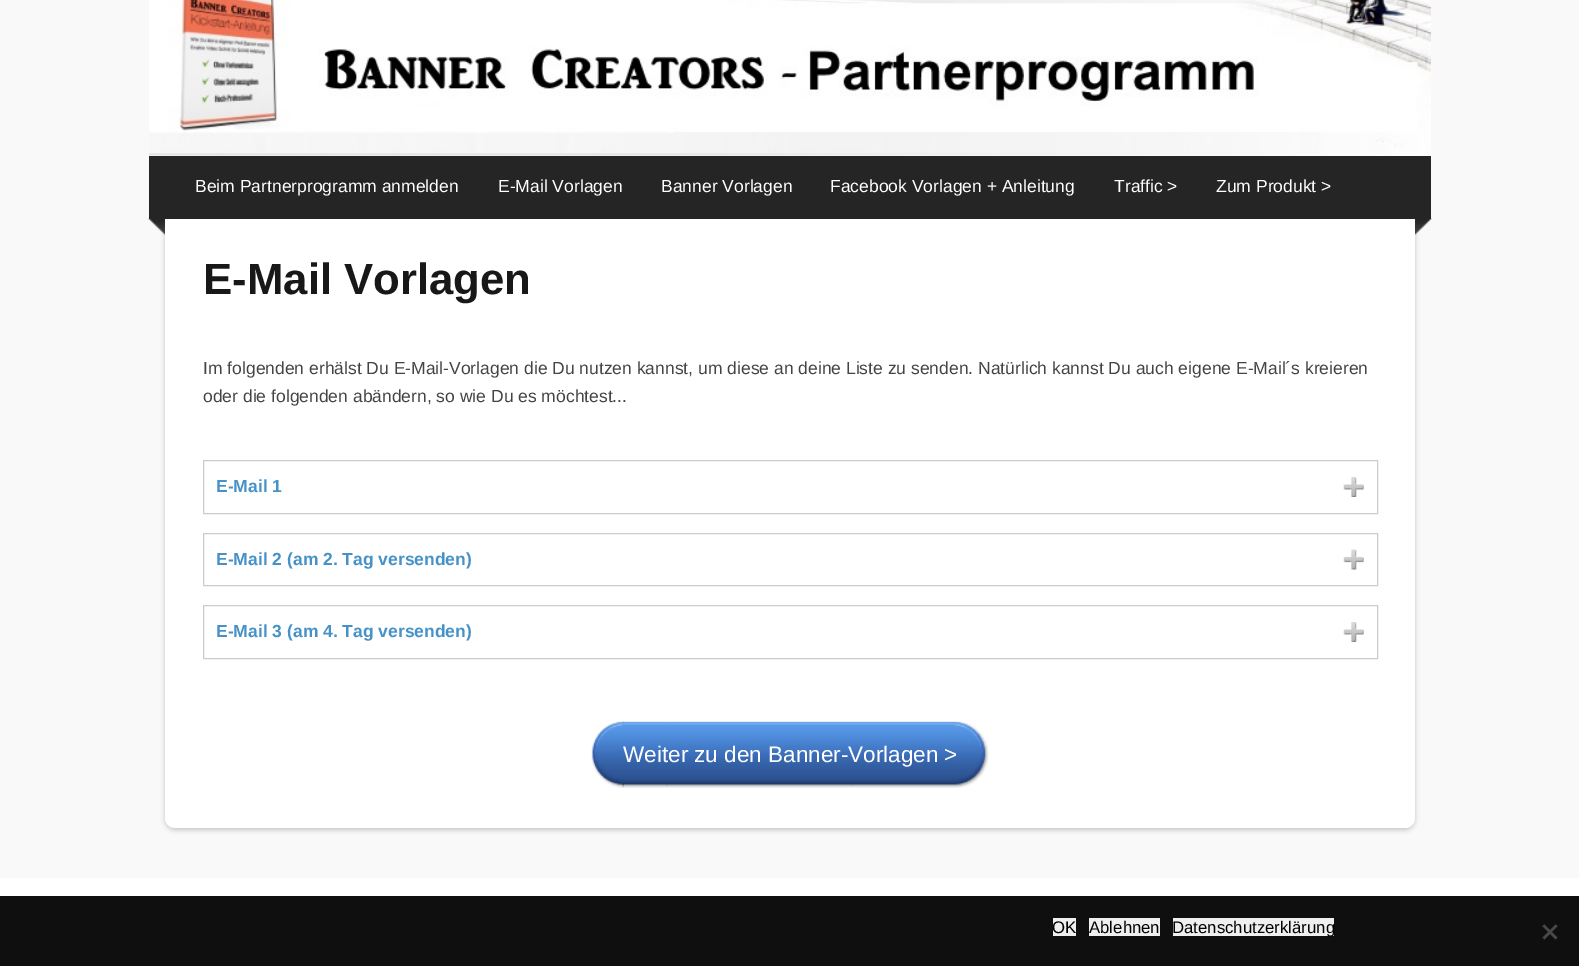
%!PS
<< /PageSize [1579 966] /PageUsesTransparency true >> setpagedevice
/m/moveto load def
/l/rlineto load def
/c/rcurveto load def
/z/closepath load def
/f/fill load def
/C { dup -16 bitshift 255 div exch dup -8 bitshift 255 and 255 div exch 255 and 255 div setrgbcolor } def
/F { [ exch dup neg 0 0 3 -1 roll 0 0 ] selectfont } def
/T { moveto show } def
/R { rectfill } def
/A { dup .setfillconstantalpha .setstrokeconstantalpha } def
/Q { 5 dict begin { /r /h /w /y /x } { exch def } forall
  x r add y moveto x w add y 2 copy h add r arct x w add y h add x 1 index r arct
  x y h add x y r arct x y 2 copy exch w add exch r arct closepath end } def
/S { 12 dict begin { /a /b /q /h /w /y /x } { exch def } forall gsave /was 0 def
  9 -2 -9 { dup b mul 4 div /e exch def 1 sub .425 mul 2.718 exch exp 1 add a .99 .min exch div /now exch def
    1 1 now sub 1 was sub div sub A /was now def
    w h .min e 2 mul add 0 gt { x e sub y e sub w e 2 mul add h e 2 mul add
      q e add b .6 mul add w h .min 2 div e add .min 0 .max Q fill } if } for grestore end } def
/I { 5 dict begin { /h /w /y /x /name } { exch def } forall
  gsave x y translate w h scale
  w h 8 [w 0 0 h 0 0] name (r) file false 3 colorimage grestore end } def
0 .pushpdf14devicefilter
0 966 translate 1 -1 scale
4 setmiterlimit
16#F9F9F9 C
0 0 1579 966 R
16#FFFFFF C
149 155 1282 1 R
(1.rgb) 149 0 1282 156 I
16#000000 C
165 221 1250 609 10 2.5 .2 S
(2.rgb) 148 218 17 17 I
(3.rgb) 1415 218 17 17 I
16#252525 C
149 156 1282 63 R
/LiberationSans-Regular 17.5 F
16#FFFFFF C
(Beim Partnerprogramm anmelden) 195 192 T
(E-Mail Vorlagen) 498 192 T
(Banner Vorlagen) 661 192 T
(Facebook Vorlagen + Anleitung) 830 192 T
(Traffic >) 1114 192 T
(Zum Produkt >) 1216 192 T
165 219 m 1250 0 l 0 599 l 0 5.5 -4.5 10 -10 10 c -1230 0 l -5.5 0 -10 -4.5 -10 -10 c z f
/LiberationSans-Bold 43.75 F
16#181818 C
(E-Mail Vorlagen) 203 294 T
/LiberationSans-Regular 17.5 F
16#444444 C
(Im folgenden erhälst Du E-Mail-Vorlagen die Du nutzen kannst, um diese an deine Liste zu senden. Natürlich kannst Du auch eigene E-Mail´s kreieren) 203 374 T
(oder die folgenden abändern, so wie Du es möchtest...) 203 402 T
16#CCCCCC C
203.5 460.5 1174 53 rectstroke
/LiberationSans-Bold 17.5 F
16#4692C8 C
(E-Mail 1) 216 492 T
(4.rgb) 1343 477 21 20 I
16#CCCCCC C
203.5 533.5 1174 52 rectstroke
16#4692C8 C
(E-Mail 2 \(am 2. Tag versenden\)) 216 565 T
(5.rgb) 1343 549 21 21 I
16#CCCCCC C
203.5 605.5 1174 53 rectstroke
16#4692C8 C
(E-Mail 3 \(am 4. Tag versenden\)) 216 637 T
(4.rgb) 1343 622 21 20 I
(6.rgb) 591 721 33 67 I
(7.rgb) 622 721 367 67 I
/LiberationSans-Regular 22.5 F
16#FFFFFF C
(Weiter zu den Banner-Vorlagen >) 623 762 T
0 878 1579 18 R
16#0F0F0F C
0 896 1579 70 R
16#EFEFEF C
1053 918 23 18 R
/LiberationSans-Regular 16.75 F
16#000000 C
(OK) 1052 933 T
16#EFEFEF C
1089 918 71 18 R
16#000000 C
(Ablehnen) 1089 933 T
16#EFEFEF C
1173 918 161 18 R
16#000000 C
(Datenschutzerklärung) 1172 933 T
16#484848 C
1555.5 924.5 m 2 1.5 l -13 13.5 l -2 -2 l z f
1542.5 926 m 2 -1.5 l 13 13 l -2 2 l z f
.poppdf14devicefilter showpage
